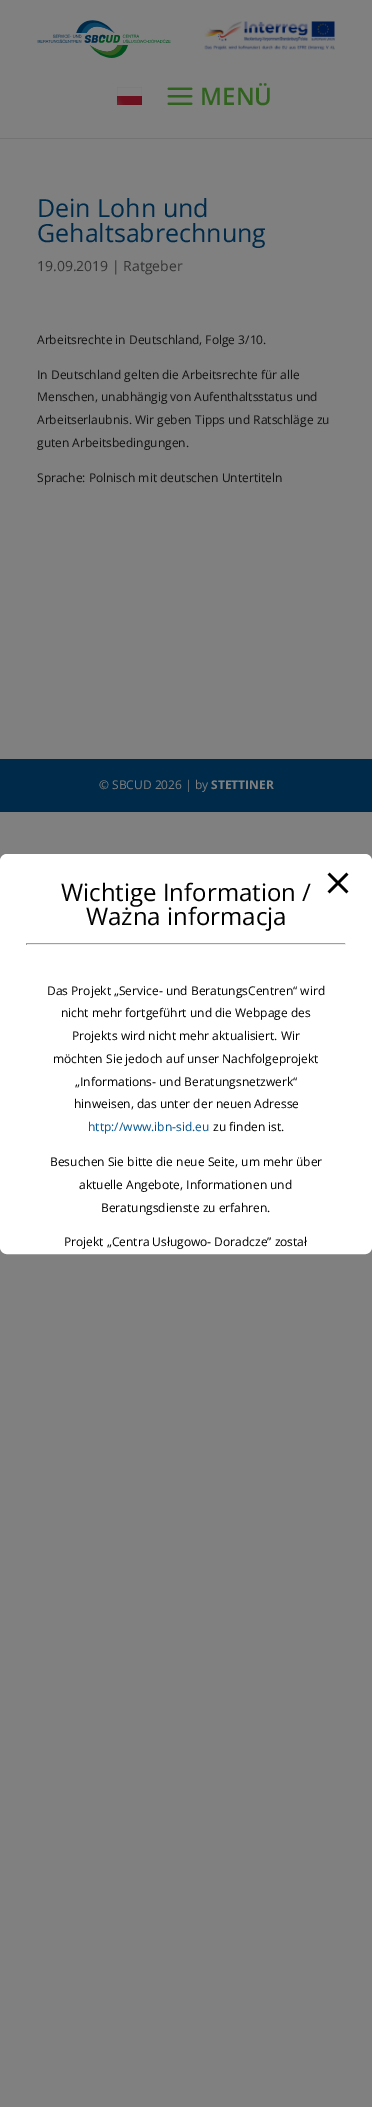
%!PS
<< /PageSize [372 2107] >> setpagedevice
/f/fill load def
/s/stroke load def
/q/gsave load def
/Q_/grestore load def
/C { dup -16 bitshift 255 div exch dup -8 bitshift 255 and 255 div exch 255 and 255 div setrgbcolor } def
/F { [ exch dup neg 0 0 3 -1 roll 0 0 ] selectfont } def
/T { moveto show } def
/R { rectfill } def
/Q { 5 dict begin { /r /h /w /y /x } { exch def } forall
  x r add y moveto x w add y 2 copy h add r arct x w add y h add x 1 index r arct
  x y h add x y r arct x y 2 copy exch w add exch r arct closepath end } def
/I { 5 dict begin { /h /w /y /x /name } { exch def } forall
  gsave x y translate w h scale
  w h 8 [w 0 0 h 0 0] name (r) file false 3 colorimage grestore end } def
0 2107 translate 1 -1 scale
4 setmiterlimit
16#808080 C
0 0 372 2107 R
16#737373 C
0 138 372 1 R
(1.rgb) 37 20 134 38 I
(2.rgb) 204 21 131 29 I
(3.rgb) 117 87 25 18 I
(4.rgb) 167 87 26 18 I
/OpenSans-SemiBold 24 F
16#30611F C
(MENÜ) 200 105 T
/OpenSans-Regular 25 F
16#002A49 C
(Dein Lohn und) 37 217 T
(Gehaltsabrechnung) 37 242 T
/OpenSans-Regular 14 F
16#333333 C
(19.09.2019 | Ratgeber) 37 271 T
/OpenSans-Regular 12 F
16#111111 C
(Arbeitsrechte in Deutschland, Folge 3/10.) 37 344 T
(In Deutschland gelten die Arbeitsrechte für alle) 37 379 T
(Menschen, unabhängig von Aufenthaltsstatus und) 37 401 T
(Arbeitserlaubnis. Wir geben Tipps und Ratschläge zu) 37 424 T
(guten Arbeitsbedingungen.) 37 447 T
(Sprache: Polnisch mit deutschen Untertiteln) 37 482 T
16#002A49 C
0 759 372 53 R
16#808080 C
(© SBCUD 2026 | by) 99 789 T
/OpenSans-Bold 12 F
(STETTINER) 211 789 T
16#FFFFFF C
.5 854.5 371 399 6.5 Q q f Q_
s
/OpenSans-Regular 24 F
16#000000 C
(Wichtige Information /) 61 901 T
(Ważna informacja) 86 925 T
(5.rgb) 327 872 22 22 I
16#9F9F9F C
26 943 320 1 R
16#EEEEEE C
345 943 1 2 R
26 944 320 1 R
16#9F9F9F C
26 943 1 2 R
/OpenSans-Regular 12 F
16#000000 C
(Das Projekt „Service- und BeratungsCentren“ wird) 47 995 T
(nicht mehr fortgeführt und die Webpage des) 61 1017 T
(Projekts wird nicht mehr aktualisiert. Wir) 72 1040 T
(möchten Sie jedoch auf unser Nachfolgeprojekt) 53 1063 T
(„Informations- und Beratungsnetzwerk“) 75 1086 T
(hinweisen, das unter der neuen Adresse) 74 1108 T
16#005491 C
(http://www.ibn-sid.eu) 88 1131 T
16#000000 C
(zu finden ist.) 213 1131 T
(Besuchen Sie bitte die neue Seite, um mehr über) 50 1166 T
(aktuelle Angebote, Informationen und) 79 1189 T
(Beratungsdienste zu erfahren.) 101 1212 T
(Projekt „Centra Usługowo- Doradcze” został) 64 1246 T
showpage
